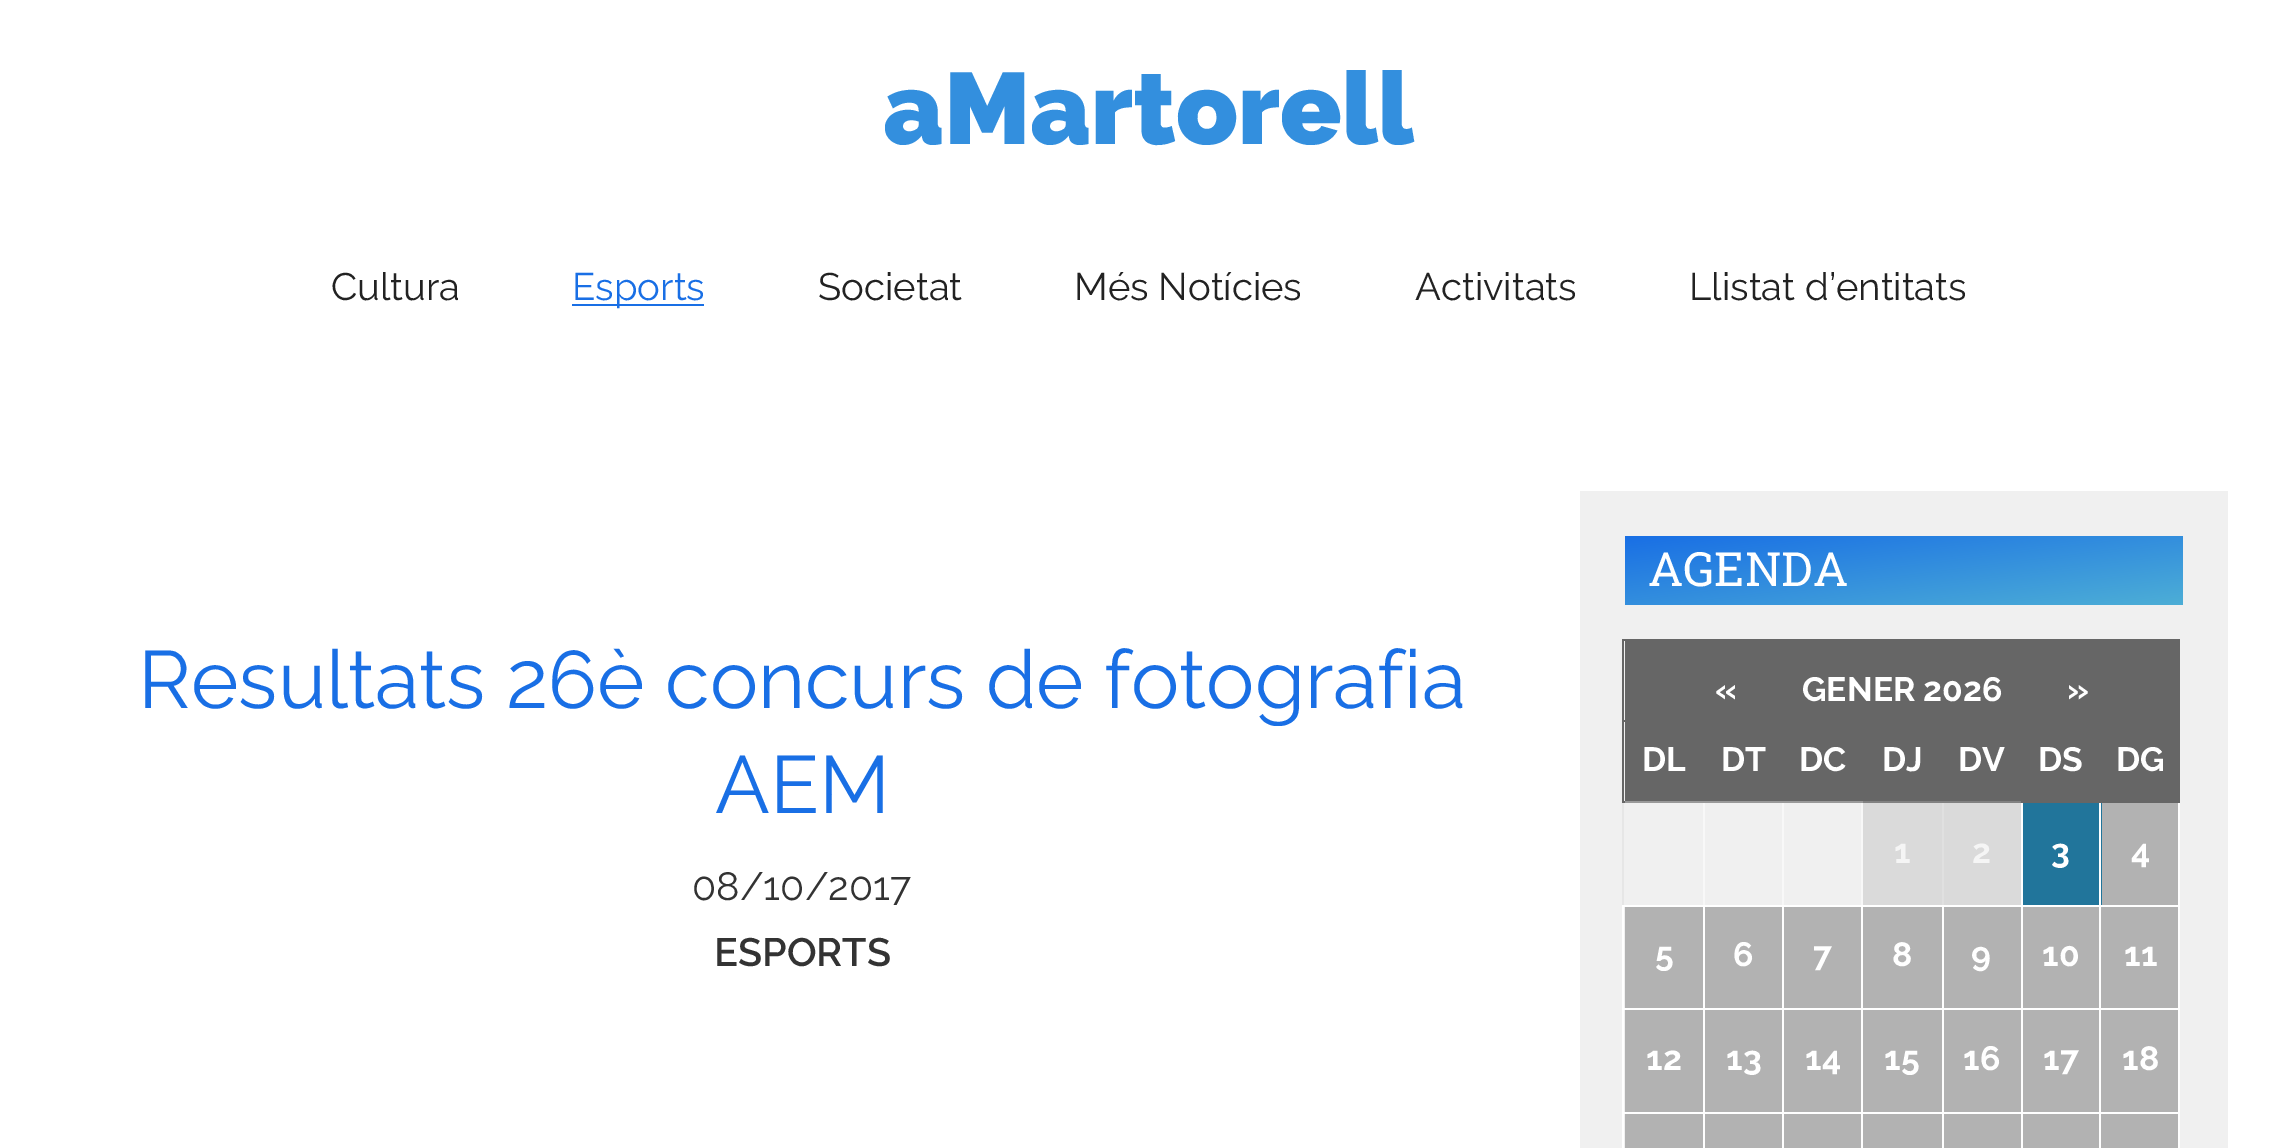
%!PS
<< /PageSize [2296 1148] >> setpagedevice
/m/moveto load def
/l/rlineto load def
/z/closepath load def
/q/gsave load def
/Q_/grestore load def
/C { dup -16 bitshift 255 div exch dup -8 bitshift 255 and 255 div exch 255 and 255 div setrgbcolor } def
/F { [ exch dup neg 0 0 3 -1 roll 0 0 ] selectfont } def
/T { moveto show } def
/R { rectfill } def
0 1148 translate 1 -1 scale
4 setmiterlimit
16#FFFFFF C
0 0 2296 1148 R
/Raleway-Black 101.25 F
16#338FDE C
(aMartorell) 883 144 T
/Raleway-Regular 38.25 F
16#222222 C
(Cultura) 331 300 T
16#196FE5 C
572 304 132 2 R
(Esports) 572 300 T
16#222222 C
(Societat) 818 300 T
(Més Notícies) 1074 300 T
(Activitats) 1415 300 T
(Llistat d’entitats) 1689 300 T
/Raleway-Regular 81 F
16#196FE5 C
(Resultats 26è concurs de fotografia) 138 708 T
(AEM) 715 813 T
/Raleway-Regular 39.5 F
16#333333 C
(08/10/2017) 692 900 T
/Raleway-SemiBold 39.5 F
(ESPORTS) 714 966 T
16#F0F0F0 C
1580 491 648 657 R
16#DADADA C
1944 803 77 102 R
1863 803 79 102 R
16#F8F8F8 C
1703 801 2 104 R
1782 801 2 104 R
1861 801 2 104 R
16#E0E0E0 C
1942 801 2 104 R
16#E6E6E6 C
1622 801 2 106 R
q 1625 536 m 558 0 l 0 69 l -558 0 l z clip newpath
<< /ShadingType 2 /ColorSpace /DeviceRGB /Coords [1895 502 1912 639] /Extend [true true] /Function << /FunctionType 2 /Domain [0 1] /C0 [.098 .435 .898] /C1 [.302 .682 .839] /N 1 >> >> shfill Q_
/RobotoSlab-Regular 47.25 F
16#FFFFFF C
(AGENDA) 1648 586 T
16#666666 C
1625 641 553 160 R
1622 639 558 2 R
2178 639 2 81 R
1622 639 2 164 R
/Raleway-Bold 33.75 F
16#FFFFFF C
(«) 1715 701 T
(GENER 2026) 1802 701 T
(») 2067 701 T
16#666666 C
1622 720 3 2 R
1622 801 3 2 R
16#FFFFFF C
(DL) 1642 771 T
(DT) 1721 771 T
16#999999 C
1625 801 238 2 R
16#FFFFFF C
(DC) 1799 771 T
(DJ) 1882 771 T
16#818181 C
1863 801 158 2 R
16#FFFFFF C
(DV) 1958 771 T
(DS) 2038 771 T
2099 905 81 2 R
2099 1008 81 2 R
2099 1112 81 2 R
2178 1112 2 36 R
2178 1008 2 106 R
2178 801 2 209 R
16#666666 C
2178 720 2 83 R
16#B2B2B2 C
2023 907 155 101 R
2023 1010 155 102 R
2023 1114 155 34 R
16#FFFFFF C
2099 1112 2 36 R
2021 1112 81 2 R
2099 1008 2 106 R
2021 1008 81 2 R
2099 905 2 105 R
2021 905 81 2 R
2021 1112 2 36 R
1942 1112 81 2 R
2021 1008 2 106 R
1942 1008 81 2 R
2021 905 2 105 R
1942 905 81 2 R
2021 801 2 106 R
16#21759B C
2023 803 79 102 R
16#FFFFFF C
2099 801 2 106 R
16#666666 C
2021 801 159 2 R
16#FFFFFF C
(DG) 2116 771 T
16#F5F5F5 C
(1) 1894 863 T
(2) 1972 863 T
16#FFFFFF C
(3) 2051 863 T
16#B2B2B2 C
2102 803 76 102 R
16#FFFFFF C
(4) 2131 863 T
16#B2B2B2 C
1625 907 78 101 R
16#FFFFFF C
1942 1112 2 36 R
1861 1112 83 2 R
1942 1008 2 106 R
1861 1008 83 2 R
1942 905 2 105 R
1861 905 83 2 R
1861 1112 2 36 R
1782 1112 81 2 R
1861 1008 2 106 R
1782 1008 81 2 R
1861 905 2 105 R
1782 905 81 2 R
1782 1112 2 36 R
1703 1112 81 2 R
1782 1008 2 106 R
1703 1008 81 2 R
1782 905 2 105 R
1703 905 81 2 R
1703 1112 2 36 R
1622 1112 84 2 R
1703 1008 2 106 R
1622 1008 84 2 R
1703 905 2 105 R
1622 905 84 2 R
1622 1112 2 36 R
1622 1008 2 106 R
1622 905 2 105 R
(5) 1655 966 T
16#B2B2B2 C
1705 907 77 101 R
16#FFFFFF C
(6) 1733 966 T
16#B2B2B2 C
1784 907 77 101 R
16#FFFFFF C
(7) 1813 966 T
16#B2B2B2 C
1863 907 79 101 R
16#FFFFFF C
(8) 1892 966 T
16#B2B2B2 C
1944 907 77 101 R
16#FFFFFF C
(9) 1971 966 T
(10) 2042 966 T
(11) 2124 966 T
16#B2B2B2 C
1625 1010 78 102 R
16#FFFFFF C
(12) 1646 1070 T
16#B2B2B2 C
1705 1010 77 102 R
16#FFFFFF C
(13) 1726 1070 T
16#B2B2B2 C
1784 1010 77 102 R
16#FFFFFF C
(14) 1805 1070 T
16#B2B2B2 C
1863 1010 79 102 R
16#FFFFFF C
(15) 1884 1070 T
16#B2B2B2 C
1944 1010 77 102 R
16#FFFFFF C
(16) 1963 1070 T
(17) 2043 1070 T
(18) 2122 1070 T
16#B2B2B2 C
1625 1114 78 34 R
1705 1114 77 34 R
1784 1114 77 34 R
1863 1114 79 34 R
1944 1114 77 34 R
showpage
